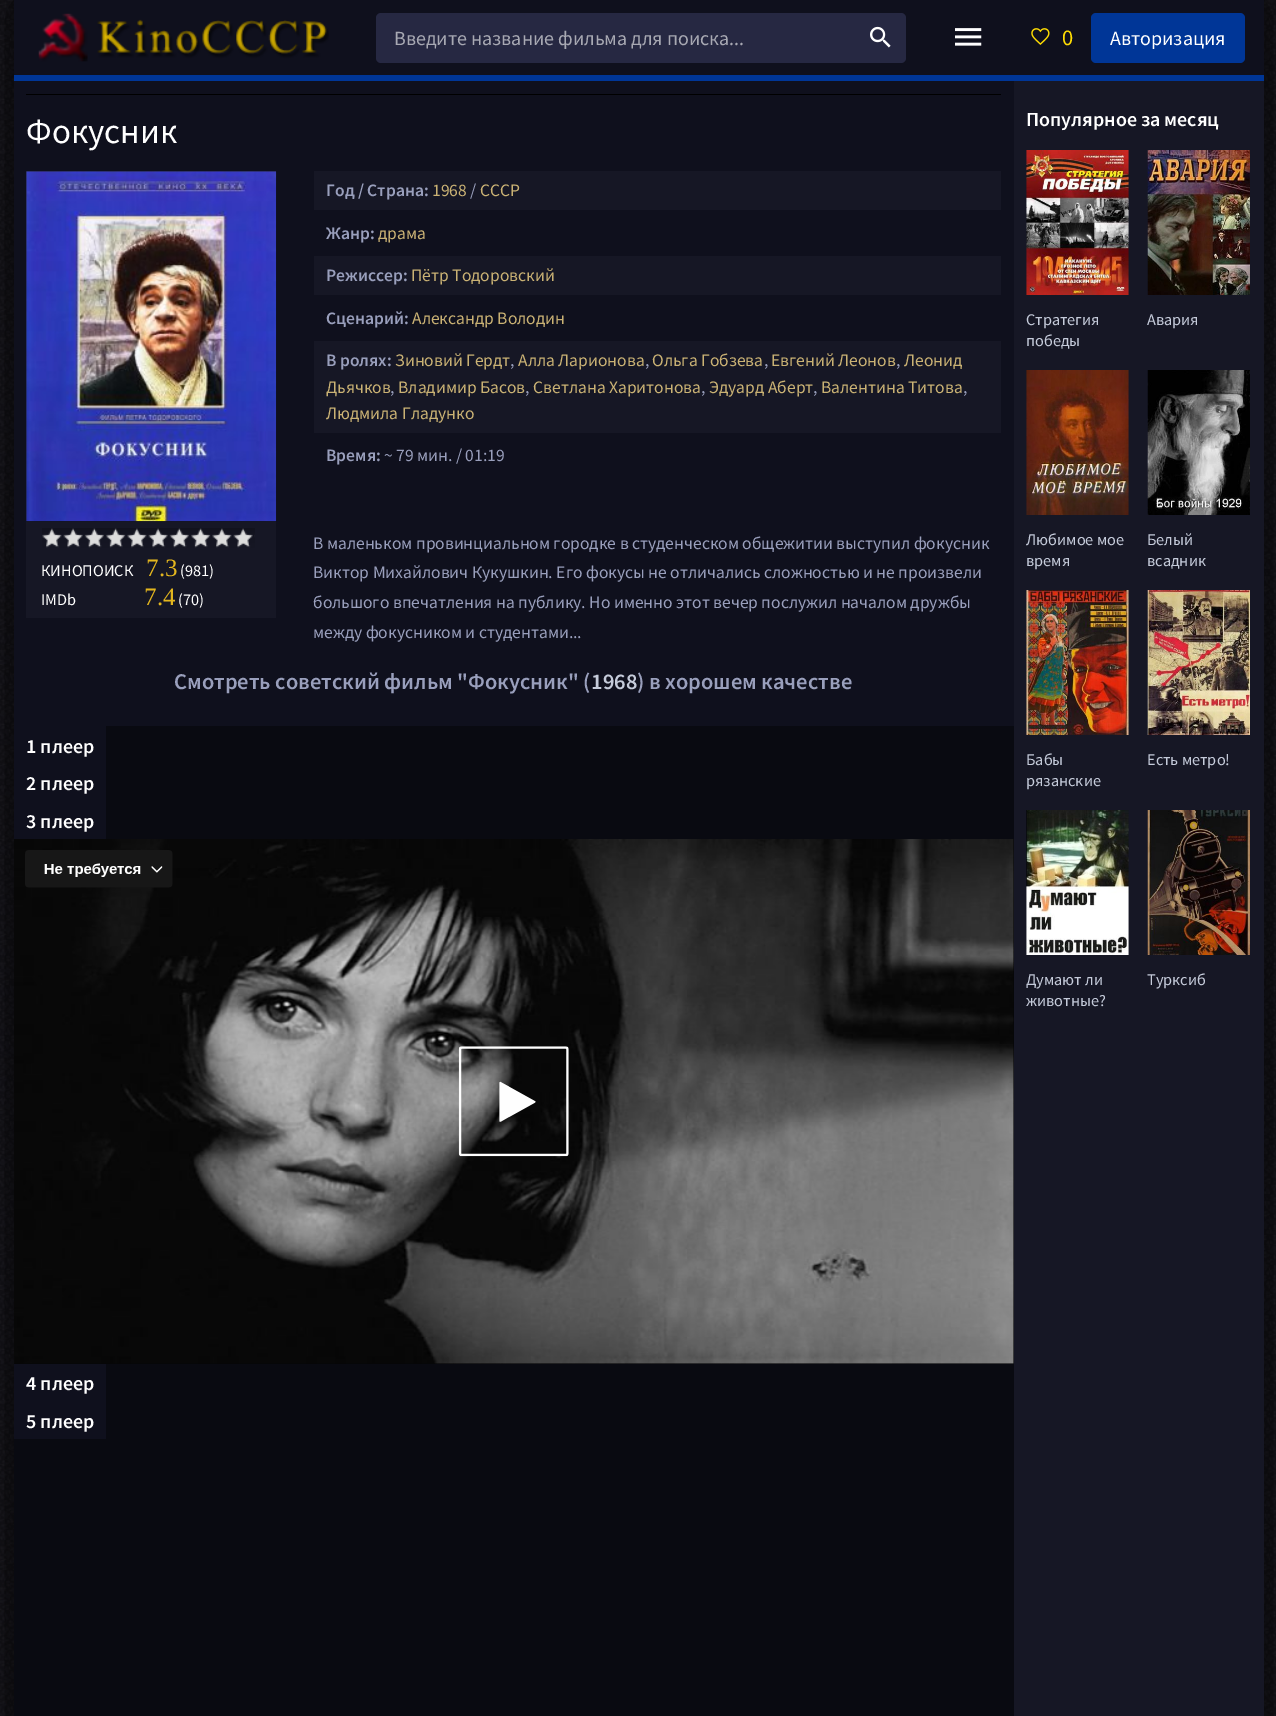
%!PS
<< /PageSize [1276 1716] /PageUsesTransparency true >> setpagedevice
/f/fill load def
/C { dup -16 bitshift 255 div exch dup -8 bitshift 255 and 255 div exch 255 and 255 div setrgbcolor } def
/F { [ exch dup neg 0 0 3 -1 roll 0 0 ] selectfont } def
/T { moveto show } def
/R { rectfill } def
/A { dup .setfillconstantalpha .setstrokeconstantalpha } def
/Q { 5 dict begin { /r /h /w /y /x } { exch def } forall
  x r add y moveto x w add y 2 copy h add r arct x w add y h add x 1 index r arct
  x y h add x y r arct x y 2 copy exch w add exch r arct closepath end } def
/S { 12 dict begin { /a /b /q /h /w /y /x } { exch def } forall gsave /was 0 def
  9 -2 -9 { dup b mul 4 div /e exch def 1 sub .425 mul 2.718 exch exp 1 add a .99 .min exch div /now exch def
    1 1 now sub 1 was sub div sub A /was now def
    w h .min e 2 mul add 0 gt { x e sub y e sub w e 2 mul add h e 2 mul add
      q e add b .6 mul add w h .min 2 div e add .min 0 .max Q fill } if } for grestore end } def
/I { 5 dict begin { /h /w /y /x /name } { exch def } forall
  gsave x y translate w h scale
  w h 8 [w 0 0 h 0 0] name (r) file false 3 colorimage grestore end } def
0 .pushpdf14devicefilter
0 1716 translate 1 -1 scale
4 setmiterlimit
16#FFFFFF C
0 0 1276 1716 R
(1.rgb) 0 0 1276 1716 I
16#000000 C
14 0 1250 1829 0 37.5 .9 S
16#0F101D C
14 0 1250 726 R
16#003697 C
14 75 1250 6 R
(2.rgb) 38 13 291 49 I
16#262842 C
376 13 530 50 5 Q f
/SourceSansPro-Regular 20 F
16#A8A9B3 C
(Введите название фильма для поиска...) 394 45 T
(3.rgb) 870 26 21 22 I
(4.rgb) 955 28 27 18 I
(5.rgb) 1031 28 19 17 I
/SourceSansPro-Regular 22.5 F
16#FFDD02 C
(0) 1062 45 T
16#003697 C
1091 13 154 50 5 Q f
/SourceSansPro-Regular 20 F
16#FFFFFF C
(Авторизация) 1110 45 T
16#000000 C
26 94 975 1 R
/SourceSansPro-Regular 35 F
16#FFFFFF C
(Фокусник) 26 143 T
16#222222 C
26 171 250 350 R
16#161725 C
26 521 250 97 R
(6.rgb) 26 171 251 351 I
(7.rgb) 42 528 213 20 I
/SourceSansPro-Regular 16.25 F
16#FFFFFF C
(КИНОПОИСК) 41 576 T
/LiberationSerif-Regular 25 F
16#E3B61E C
(7.3) 146 576 T
/SourceSansPro-Regular 16.25 F
16#FFFFFF C
(\(981\)) 180 576 T
(IMDb) 41 605 T
/LiberationSerif-Regular 25 F
16#E3B61E C
(7.4) 144 605 T
/SourceSansPro-Regular 16.25 F
16#FFFFFF C
(\(70\)) 178 605 T
16#161725 C
314 171 687 39 R
/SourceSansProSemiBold-SemiBold 17.5 F
16#999FBC C
(Год / Страна:) 326 196 T
/SourceSansPro-Regular 17.5 F
16#CAB274 C
(1968) 432 196 T
16#999FBC C
(/) 470 196 T
16#CAB274 C
(СССР) 480 196 T
/SourceSansProSemiBold-SemiBold 17.5 F
16#999FBC C
(Жанр:) 326 239 T
/SourceSansPro-Regular 17.5 F
16#CAB274 C
(драма) 378 239 T
16#161725 C
314 256 687 39 R
/SourceSansProSemiBold-SemiBold 17.5 F
16#999FBC C
(Режиссер:) 326 281 T
/SourceSansPro-Regular 17.5 F
16#CAB274 C
(Пётр Тодоровский) 411 281 T
/SourceSansProSemiBold-SemiBold 17.5 F
16#999FBC C
(Сценарий:) 326 324 T
/SourceSansPro-Regular 17.5 F
16#CAB274 C
(Александр Володин) 412 324 T
16#161725 C
314 341 687 92 R
/SourceSansProSemiBold-SemiBold 17.5 F
16#999FBC C
(В ролях:) 326 366 T
/SourceSansPro-Regular 17.5 F
16#CAB274 C
(Зиновий Гердт) 395 366 T
16#999FBC C
(,) 510 366 T
16#CAB274 C
(Алла Ларионова) 518 366 T
16#999FBC C
(,) 645 366 T
16#CAB274 C
(Ольга Гобзева) 652 366 T
16#999FBC C
(,) 764 366 T
16#CAB274 C
(Евгений Леонов) 771 366 T
16#999FBC C
(,) 896 366 T
16#CAB274 C
(Леонид) 904 366 T
(Дьячков) 326 393 T
16#999FBC C
(,) 390 393 T
16#CAB274 C
(Владимир Басов) 398 393 T
16#999FBC C
(,) 525 393 T
16#CAB274 C
(Светлана Харитонова) 533 393 T
16#999FBC C
(,) 701 393 T
16#CAB274 C
(Эдуард Аберт) 709 393 T
16#999FBC C
(,) 813 393 T
16#CAB274 C
(Валентина Титова) 821 393 T
16#999FBC C
(,) 963 393 T
16#CAB274 C
(Людмила Гладунко) 326 419 T
/SourceSansProSemiBold-SemiBold 17.5 F
16#999FBC C
(Время:) 326 461 T
/SourceSansPro-Regular 17.5 F
(~ 79 мин. / 01:19) 384 461 T
(В маленьком провинциальном городке в студенческом общежитии выступил фокусник) 313 549 T
(Виктор Михайлович Кукушкин. Его фокусы не отличались сложностью и не произвели) 313 578 T
(большого впечатления на публику. Но именно этот вечер послужил началом дружбы) 313 608 T
(между фокусником и студентами...) 313 638 T
/SourceSansProSemiBold-SemiBold 22.5 F
(Смотреть советский фильм "Фокусник" \() 174 689 T
16#C5CBDA C
(1968) 591 689 T
16#999FBC C
(\) в хорошем качестве) 637 689 T
16#090A11 C
106 726 908 75 R
14 801 1000 563 R
16#0F101D C
14 726 92 113 R
/SourceSansProSemiBold-SemiBold 20 F
16#FFFFFF C
(1 плеер) 26 753 T
(2 плеер) 26 790 T
(3 плеер) 26 828 T
(8.rgb) 14 839 1000 525 I
16#090A11 C
106 1364 908 37 R
14 1401 1000 315 R
16#0F101D C
14 1364 92 75 R
16#FFFFFF C
(4 плеер) 26 1390 T
(5 плеер) 26 1428 T
16#161725 C
1014 81 250 1635 R
16#FFFFFF C
(Популярное за месяц) 1026 126 T
(9.rgb) 1026 150 103 145 I
/SourceSansPro-Regular 16.25 F
16#C5CBDA C
(Стратегия) 1026 325 T
(победы) 1026 346 T
(10.rgb) 1147 150 103 145 I
(Авария) 1147 325 T
(11.rgb) 1026 370 103 145 I
(Любимое мое) 1026 545 T
(время) 1026 566 T
(12.rgb) 1147 370 103 145 I
(Белый) 1147 545 T
(всадник) 1147 566 T
(13.rgb) 1026 590 103 145 I
(Бабы) 1026 765 T
(рязанские) 1026 786 T
(14.rgb) 1147 590 103 145 I
(Есть метро!) 1147 765 T
(15.rgb) 1026 810 103 145 I
(Думают ли) 1026 985 T
(животные?) 1026 1006 T
(16.rgb) 1147 810 103 145 I
(Турксиб) 1147 985 T
.poppdf14devicefilter showpage
